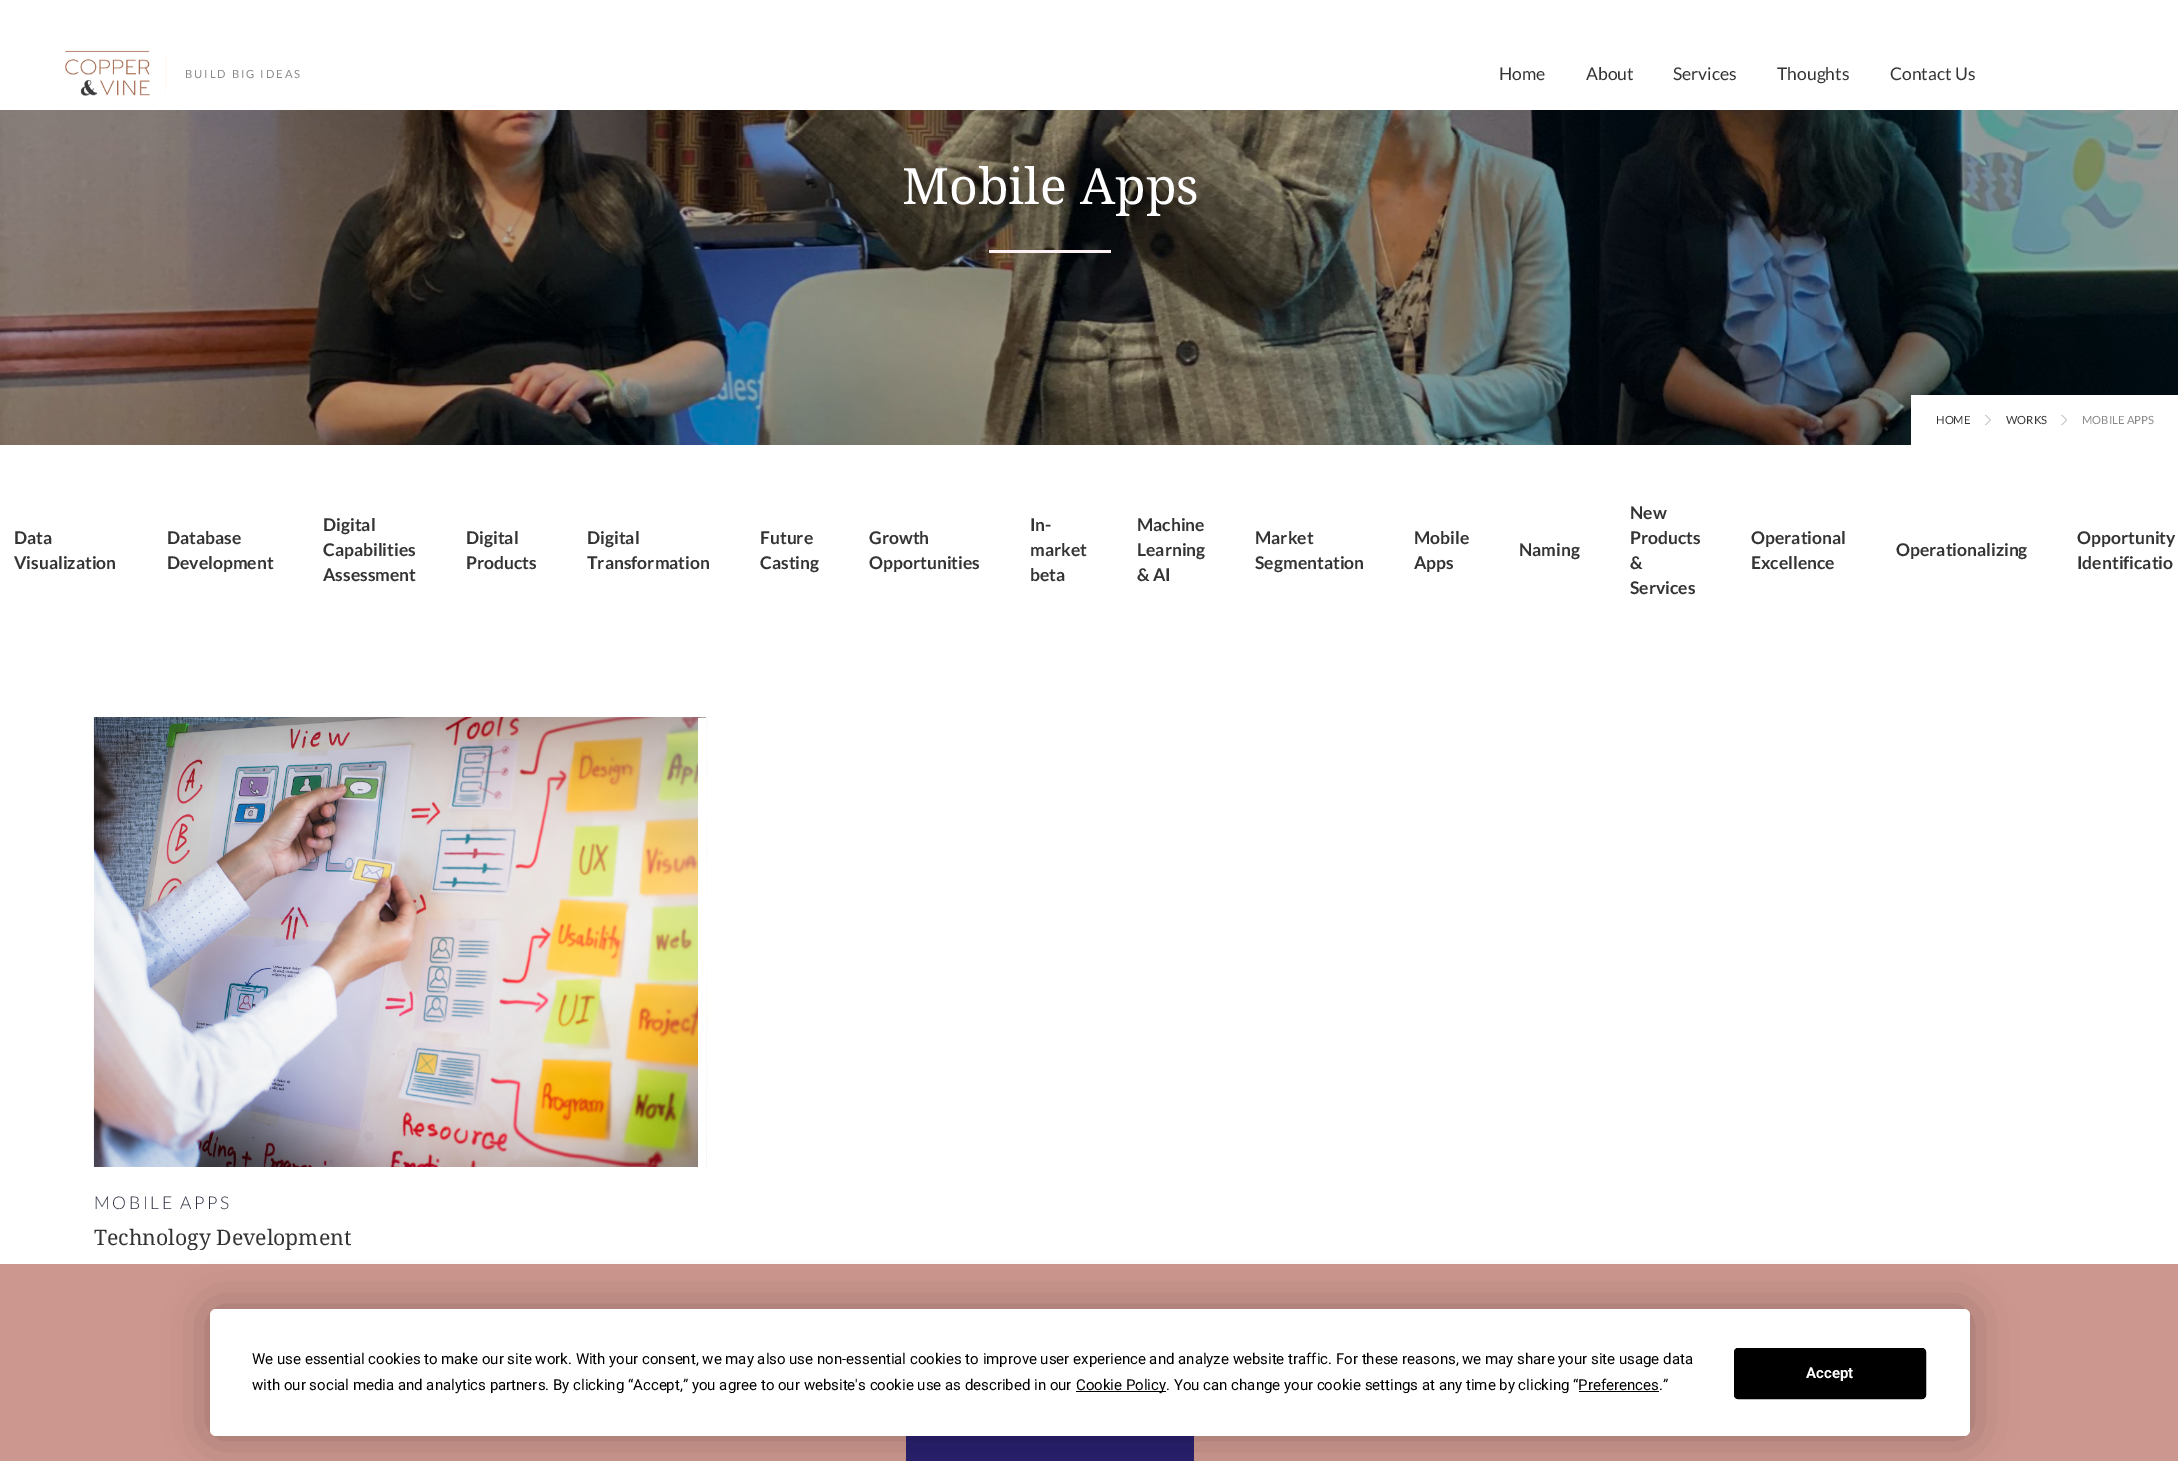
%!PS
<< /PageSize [2178 1461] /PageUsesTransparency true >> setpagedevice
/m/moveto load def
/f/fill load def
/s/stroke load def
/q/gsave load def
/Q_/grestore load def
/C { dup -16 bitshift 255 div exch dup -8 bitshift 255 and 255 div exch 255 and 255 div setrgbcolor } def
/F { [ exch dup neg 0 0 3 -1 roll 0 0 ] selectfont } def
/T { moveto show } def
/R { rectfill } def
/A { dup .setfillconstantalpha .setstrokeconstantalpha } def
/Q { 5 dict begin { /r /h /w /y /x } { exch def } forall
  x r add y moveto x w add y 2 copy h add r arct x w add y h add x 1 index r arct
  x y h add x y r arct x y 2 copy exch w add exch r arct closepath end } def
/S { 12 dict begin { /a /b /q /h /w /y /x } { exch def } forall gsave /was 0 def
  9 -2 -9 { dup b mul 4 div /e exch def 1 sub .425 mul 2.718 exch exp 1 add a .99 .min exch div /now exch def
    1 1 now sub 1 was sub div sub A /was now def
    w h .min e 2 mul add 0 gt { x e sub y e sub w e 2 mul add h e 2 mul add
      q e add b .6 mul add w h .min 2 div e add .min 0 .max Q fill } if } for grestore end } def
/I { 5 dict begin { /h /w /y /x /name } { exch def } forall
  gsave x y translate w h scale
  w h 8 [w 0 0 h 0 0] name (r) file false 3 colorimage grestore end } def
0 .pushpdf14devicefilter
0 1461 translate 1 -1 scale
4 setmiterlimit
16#FFFFFF C
0 0 2178 1461 R
(1.rgb) 65 50 85 46 I
16#FFF7EF C
165 56 1 35 R
/Lato-Regular 11.25 F
16#888888 C
185 78 m 1.9 0 (BUILD BIG IDEAS) ashow
/Lato-Regular 17.5 F
16#343434 C
(Home) 1499 80 T
(About) 1586 80 T
(Services) 1673 80 T
(Thoughts) 1777 80 T
(Contact Us) 1890 80 T
16#000000 C
0 110 2178 335 R
(2.rgb) 0 110 2178 335 I
/NotoSerif-Regular 50 F
16#FFFFFF C
(Mobile Apps) 902 204 T
16#FDF1F5 C
989 250 122 3 R
16#FFFFFF C
1911 395 267 50 R
/Lato-Regular 11.25 F
16#343434 C
(HOME) 1936 424 T
(3.rgb) 1985 414 6 12 I
(WORKS) 2006 424 T
(4.rgb) 2061 414 6 12 I
16#888888 C
(MOBILE APPS) 2082 424 T
/Lato-Bold 17.5 F
16#343434 C
(Data) 14 544 T
(Visualization) 14 569 T
(Database) 167 544 T
(Development) 167 569 T
(Digital) 323 531 T
(Capabilities) 323 556 T
(Assessment) 323 581 T
(Digital) 466 544 T
(Products) 466 569 T
(Digital) 587 544 T
(Transformation) 587 569 T
(Future) 760 544 T
(Casting) 760 569 T
(Growth) 869 544 T
(Opportunities) 869 569 T
(In-) 1030 531 T
(market) 1030 556 T
(beta) 1030 581 T
(Machine) 1137 531 T
(Learning) 1137 556 T
(& AI) 1137 581 T
(Market) 1255 544 T
(Segmentation) 1255 569 T
(Mobile) 1414 544 T
(Apps) 1414 569 T
(Naming) 1519 556 T
(New) 1630 519 T
(Products) 1630 544 T
(&) 1630 569 T
(Services) 1630 594 T
(Operational) 1751 544 T
(Excellence) 1751 569 T
(Operationalizing) 1896 556 T
(Opportunity) 2077 544 T
(Identificatio) 2077 569 T
(5.rgb) 93 717 614 450 I
16#FFFFFF C
698 718 8 450 R
/Lato-Light 17.5 F
16#2D3142 C
94 1209 m 2.5 0 (MOBILE APPS) ashow
/NotoSerif-Regular 21.25 F
16#343434 C
(Technology Development) 94 1245 T
16#CC978E C
0 1264 2178 197 R
16#29206D C
906 1436 288 25 R
16#000000 C
210 1309 1760 127 6 22 .25 S
16#FFFFFF C
210 1309 1760 127 6 Q f
/Roboto-Regular 15 F
16#000000 C
(We use essential cookies to make our site work. With your consent, we may also use non-essential cookies to improve user experience and analyze website traffic. For these reasons, we may share your site usage data) 252 1364 T
(with our social media and analytics partners. By clicking “Accept,” you agree to our website's cookie use as described in our) 252 1390 T
1076 1391 90 1 R
(Cookie Policy. You can change your cookie settings at any time by clicking “Preferences.”) 1076 1390 T
1579 1391 80 1 R
1734.5 1348.5 191 50 3.5 Q q f Q_
s
/Roboto-Bold 15 F
16#FFFFFF C
(Accept) 1806 1378 T
.poppdf14devicefilter showpage
